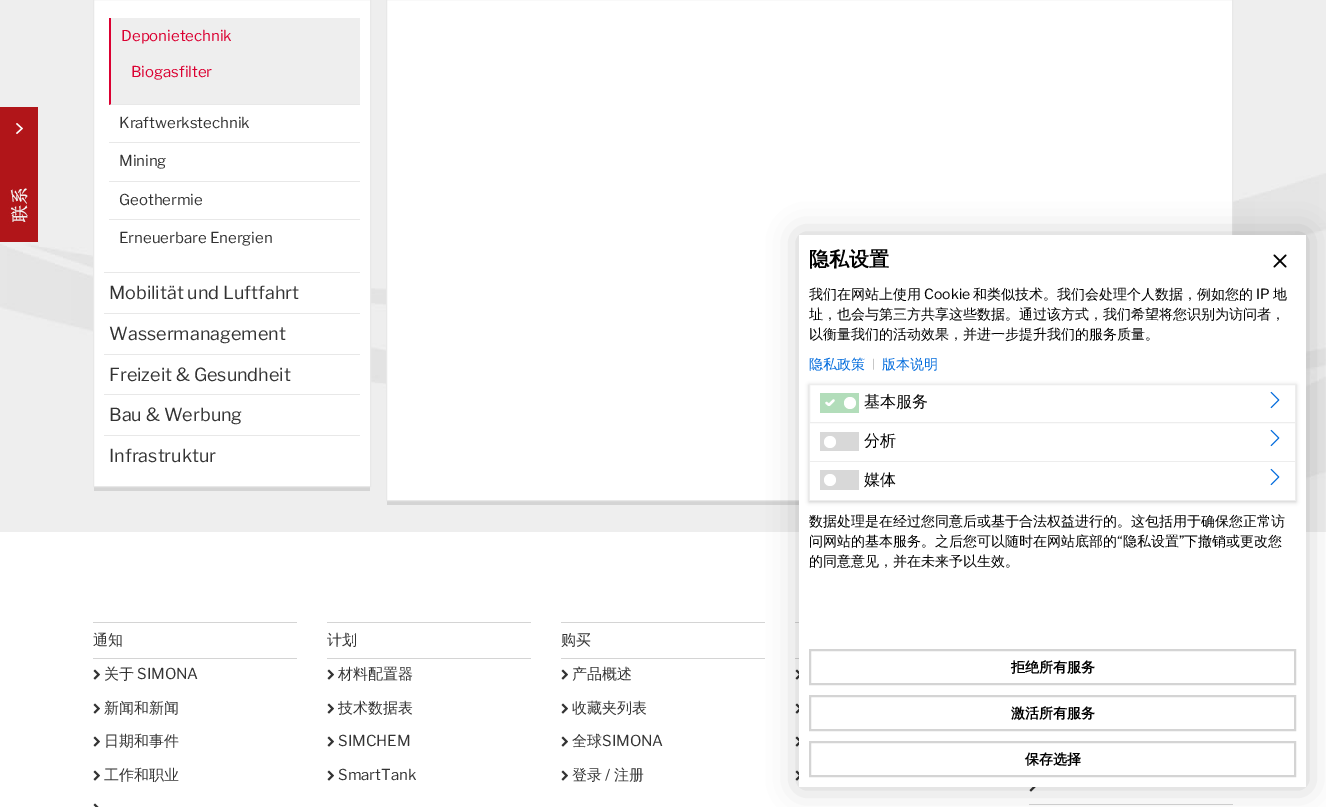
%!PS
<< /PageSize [1326 807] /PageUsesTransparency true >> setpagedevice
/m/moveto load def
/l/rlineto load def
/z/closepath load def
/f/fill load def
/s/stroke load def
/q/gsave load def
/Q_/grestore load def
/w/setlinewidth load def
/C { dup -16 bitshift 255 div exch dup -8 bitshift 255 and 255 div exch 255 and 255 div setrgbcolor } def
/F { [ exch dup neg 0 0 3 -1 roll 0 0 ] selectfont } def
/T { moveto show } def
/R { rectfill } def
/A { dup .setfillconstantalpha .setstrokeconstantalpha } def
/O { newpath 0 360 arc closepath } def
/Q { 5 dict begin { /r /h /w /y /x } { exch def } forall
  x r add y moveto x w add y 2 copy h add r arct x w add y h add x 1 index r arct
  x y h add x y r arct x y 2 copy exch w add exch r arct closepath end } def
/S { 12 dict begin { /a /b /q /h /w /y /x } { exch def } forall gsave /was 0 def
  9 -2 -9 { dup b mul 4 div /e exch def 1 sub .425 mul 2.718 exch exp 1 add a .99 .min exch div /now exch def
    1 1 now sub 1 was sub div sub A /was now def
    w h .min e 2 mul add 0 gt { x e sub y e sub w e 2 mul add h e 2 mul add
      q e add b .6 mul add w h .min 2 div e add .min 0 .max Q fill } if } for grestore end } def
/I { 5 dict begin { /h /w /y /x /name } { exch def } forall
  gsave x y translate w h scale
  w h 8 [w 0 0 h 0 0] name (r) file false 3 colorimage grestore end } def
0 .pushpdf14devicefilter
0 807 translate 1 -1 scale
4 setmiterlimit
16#FFFFFF C
0 0 1326 807 R
16#EEEEEE C
0 0 1326 173 R
(2.rgb) 0 173 1326 359 I
(1.rgb) 0 107 38 135 I
16#D4D4D4 C
94 487 276 4 R
16#FFFFFF C
93.5 -.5 m 277 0 l 0 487 l -277 0 l z q f Q_
16#E8E8E8 C
s
104 272 256 1 R
16#EEEEEE C
109 18 251 87 R
16#E8E8E8 C
360 105 m -251 0 l 2 -1 l 249 0 l z f
16#DB0031 C
109 105 m 0 -87 l 2 0 l 0 86 l z f
/LibreFranklin-Regular 15 F
(Deponietechnik) 121 41 T
(Biogasfilter) 131 77 T
16#E8E8E8 C
109 142 251 1 R
16#333333 C
(Kraftwerkstechnik) 119 128 T
16#E8E8E8 C
109 181 251 1 R
16#333333 C
(Mining) 119 166 T
16#E8E8E8 C
109 219 251 1 R
16#333333 C
(Geothermie) 119 205 T
(Erneuerbare Energien) 119 243 T
16#E8E8E8 C
104 313 256 1 R
/LibreFranklin-Regular 18 F
16#333333 C
(Mobilität und Luftfahrt) 109 299 T
16#E8E8E8 C
104 354 256 1 R
16#333333 C
(Wassermanagement) 109 340 T
16#E8E8E8 C
104 394 256 1 R
16#333333 C
(Freizeit & Gesundheit) 109 381 T
16#E8E8E8 C
104 435 256 1 R
16#333333 C
(Bau & Werbung) 109 421 T
(Infrastruktur) 109 462 T
16#D4D4D4 C
387 501 412 4 R
16#FFFFFF C
386.5 -.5 m 846 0 l 0 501 l -846 0 l z q f Q_
16#E8E8E8 C
s
16#D4D4D4 C
93 622 204 1 R
93 658 204 1 R
/WenQuanYiZenHei-Medium 15 F
16#333333 C
(通知) 93 645 T
(3.rgb) 93 669 7 11 I
(关于) 104 679 T
/LibreFranklin-Regular 15 F
(SIMONA) 137 679 T
(3.rgb) 93 703 7 11 I
/WenQuanYiZenHei-Medium 15 F
(新闻和新闻) 104 713 T
(3.rgb) 93 736 7 11 I
(日期和事件) 104 746 T
(3.rgb) 93 770 7 11 I
(工作和职业) 104 780 T
(4.rgb) 93 803 6 4 I
16#D4D4D4 C
327 622 204 1 R
327 658 204 1 R
16#333333 C
(计划) 327 645 T
(3.rgb) 327 669 7 11 I
(材料配置器) 338 679 T
(3.rgb) 327 703 7 11 I
(技术数据表) 338 713 T
(3.rgb) 327 736 7 11 I
/LibreFranklin-Regular 15 F
(SIMCHEM) 338 746 T
(3.rgb) 327 770 7 11 I
(SmartTank) 338 780 T
16#D4D4D4 C
561 622 204 1 R
561 658 204 1 R
/WenQuanYiZenHei-Medium 15 F
16#333333 C
(购买) 561 645 T
(3.rgb) 561 669 7 11 I
(产品概述) 572 679 T
(3.rgb) 561 703 7 11 I
(收藏夹列表) 572 713 T
(3.rgb) 561 736 7 11 I
(全球) 572 746 T
/LibreFranklin-Regular 15 F
(SIMONA) 602 746 T
(3.rgb) 561 770 7 11 I
/WenQuanYiZenHei-Medium 15 F
(登录) 572 780 T
/LibreFranklin-Regular 15 F
(/) 605 780 T
/WenQuanYiZenHei-Medium 15 F
(注册) 614 780 T
16#D4D4D4 C
795 622 4 1 R
795 658 4 1 R
(5.rgb) 795 669 4 11 I
(5.rgb) 795 703 4 11 I
(5.rgb) 795 736 4 11 I
(5.rgb) 795 770 4 11 I
1029 804 204 1 R
(6.rgb) 1029 787 7 5 I
16#000000 C
799 235 507 552 0 15 .2 S
16#FFFFFF C
799 235 507 552 R
/WenQuanYiZenHei-Bold 20 F
16#000000 C
(隐私设置) 809 266 T
/WenQuanYiZenHei-Medium 14 F
(我们在网站上使用) 809 299 T
/LibreFranklin-Regular 14 F
(Cookie) 924 299 T
/WenQuanYiZenHei-Medium 14 F
(和类似技术。我们会处理个人数据，例如您的) 973 299 T
/LibreFranklin-Regular 14 F
(IP) 1256 299 T
/WenQuanYiZenHei-Medium 14 F
(地) 1273 299 T
(址，也会与第三方共享这些数据。通过该方式，我们希望将您识别为访问者，) 809 319 T
(以衡量我们的活动效果，并进一步提升我们的服务质量。) 809 339 T
16#006ADC C
(隐私政策) 809 369 T
/LibreFranklin-Regular 11 F
16#B3B3B3 C
(|) 872 368 T
/WenQuanYiZenHei-Medium 14 F
16#006ADC C
(版本说明) 882 369 T
q
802 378 m 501 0 l 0 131 l -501 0 l z 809 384 m 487 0 l 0 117 l -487 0 l z eoclip newpath
16#000000 C
809 385 487 117 0 2 .2 S
Q_
16#EDEDED C
809.5 384.5 486 38 rectstroke
16#B2DDBA C
820 393 39 20 R
16#FFFFFF C
850 403 6 O f
2.3 w
1 setlinecap
1 setlinejoin
826.5 403 m 2.5 2 l 4.5 -4.5 l s
/WenQuanYiZenHei-Medium 16 F
16#000000 C
(基本服务) 864 407 T
(7.rgb) 1270 391 10 18 I
16#EDEDED C
1295 423 1 78 R
809 461 487 1 R
809 423 1 39 R
16#D8D8D8 C
820 432 39 19 R
16#FFFFFF C
830 442 6 O f
16#000000 C
(分析) 864 446 T
(7.rgb) 1270 429 10 18 I
16#EDEDED C
809 500 487 1 R
809 462 1 39 R
16#D8D8D8 C
820 470 39 20 R
16#FFFFFF C
830 480 6 O f
16#000000 C
(媒体) 864 485 T
(7.rgb) 1270 468 10 18 I
/WenQuanYiZenHei-Medium 14 F
(数据处理是在经过您同意后或基于合法权益进行的。这包括用于确保您正常访) 809 526 T
(问网站的基本服务。之后您可以随时在网站底部的) 809 546 T
/LibreFranklin-Regular 14 F
(“) 1117 546 T
/WenQuanYiZenHei-Medium 14 F
(隐私设置) 1123 546 T
/LibreFranklin-Regular 14 F
(”) 1179 546 T
/WenQuanYiZenHei-Medium 14 F
(下撤销或更改您) 1184 546 T
(的同意意见，并在未来予以生效。) 809 566 T
16#D4D4D4 C
2 w
0 setlinecap
0 setlinejoin
810 650 485 34 rectstroke
/WenQuanYiZenHei-Bold 14 F
16#000000 C
(拒绝所有服务) 1011 672 T
16#D4D4D4 C
810 696 485 34 rectstroke
16#000000 C
(激活所有服务) 1011 718 T
16#D4D4D4 C
810 742 485 34 rectstroke
16#000000 C
(保存选择) 1025 764 T
(8.rgb) 1273 254 14 14 I
.poppdf14devicefilter showpage
